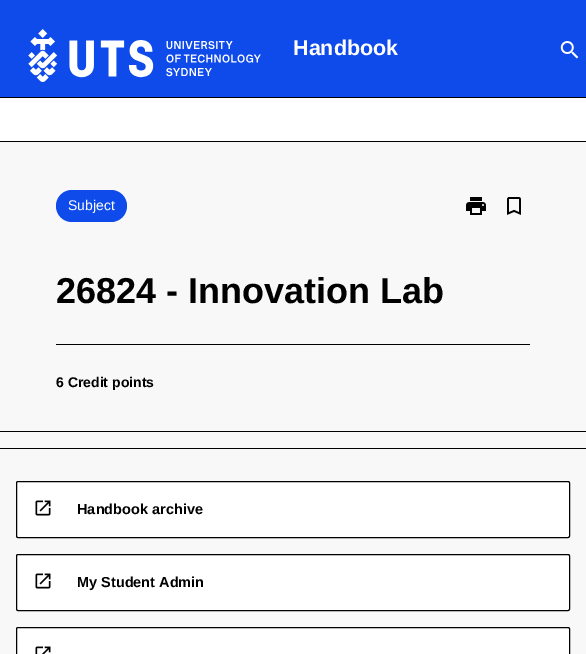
%!PS
<< /PageSize [586 654] >> setpagedevice
/f/fill load def
/s/stroke load def
/q/gsave load def
/Q_/grestore load def
/C { dup -16 bitshift 255 div exch dup -8 bitshift 255 and 255 div exch 255 and 255 div setrgbcolor } def
/F { [ exch dup neg 0 0 3 -1 roll 0 0 ] selectfont } def
/T { moveto show } def
/R { rectfill } def
/Q { 5 dict begin { /r /h /w /y /x } { exch def } forall
  x r add y moveto x w add y 2 copy h add r arct x w add y h add x 1 index r arct
  x y h add x y r arct x y 2 copy exch w add exch r arct closepath end } def
/I { 5 dict begin { /h /w /y /x /name } { exch def } forall
  gsave x y translate w h scale
  w h 8 [w 0 0 h 0 0] name (r) file false 3 colorimage grestore end } def
0 654 translate 1 -1 scale
4 setmiterlimit
16#FFFFFF C
0 0 586 654 R
16#0F4BEB C
0 0 586 97 R
(1.rgb) 28 29 233 53 I
/LiberationSans-Bold 21.5 F
16#FFFFFF C
(Handbook) 293 55 T
(2.rgb) 560 41 19 18 I
16#000000 C
0 97 586 1 R
0 141 586 1 R
16#F8F8F8 C
0 142 586 306 R
16#0F4BEB C
56 190 71 32 16 Q f
/LiberationSans-Regular 14 F
16#FFFFFF C
(Subject) 68 210 T
(3.rgb) 466 197 20 18 I
(4.rgb) 507 197 14 18 I
16#000000 C
56 344 474 1 R
/LiberationSans-Bold 36 F
(26824 - Innovation Lab) 56 303 T
/LiberationSans-Bold 14 F
(6 Credit points) 56 387 T
0 431 586 1 R
16#F8F8F8 C
0 449 586 205 R
16#000000 C
0 448 586 1 R
16#FFFFFF C
16.5 481.5 553 56 1.5 Q q f Q_
16#000000 C
s
(5.rgb) 35 500 16 16 I
/LiberationSans-Bold 14.5 F
(Handbook archive) 77 514 T
16#FFFFFF C
16.5 554.5 553 56 1.5 Q q f Q_
16#000000 C
s
(5.rgb) 35 573 16 16 I
(My Student Admin) 77 587 T
16#FFFFFF C
16.5 627.5 553 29 1.5 Q q f Q_
16#000000 C
s
(6.rgb) 35 646 16 8 I
showpage
